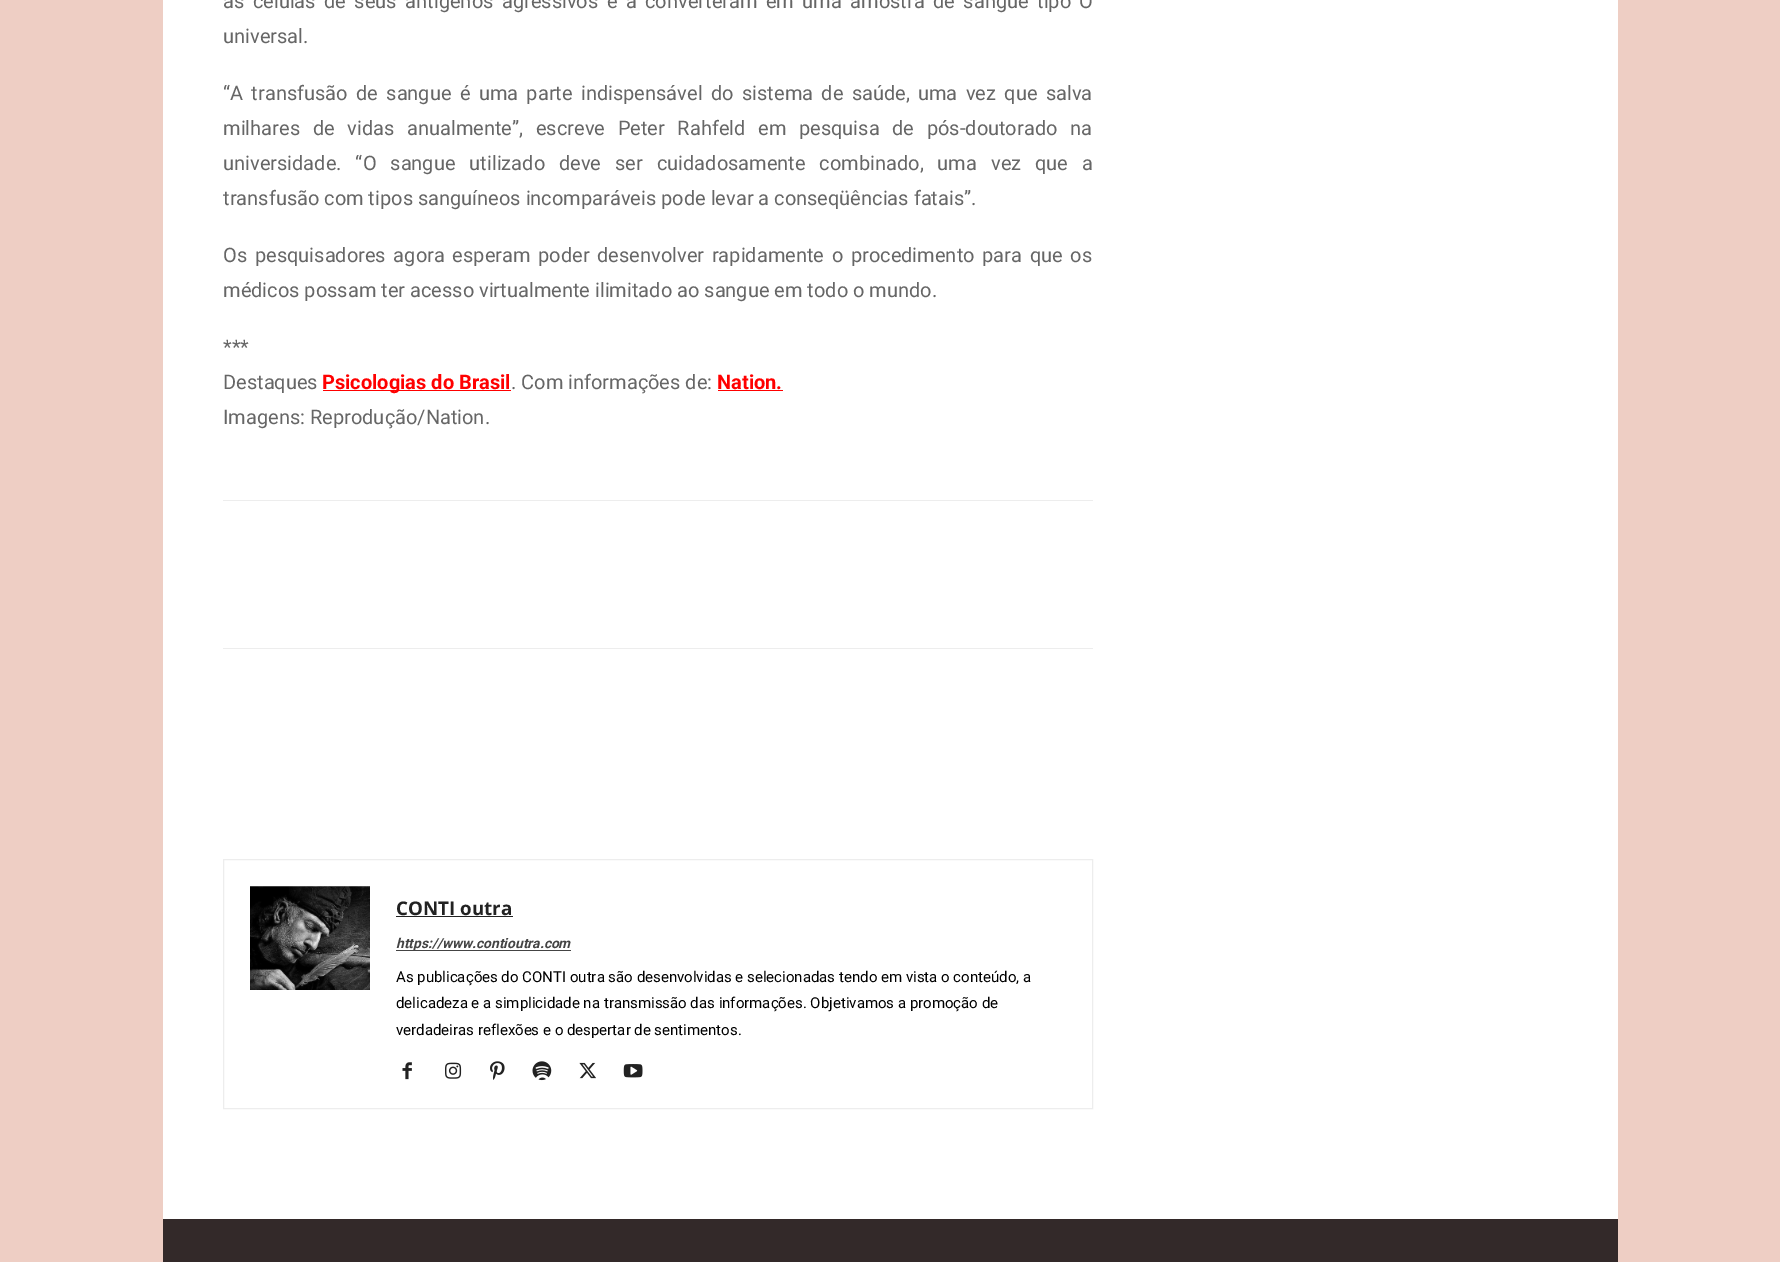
%!PS
<< /PageSize [1780 1262] >> setpagedevice
/m/moveto load def
/C { dup -16 bitshift 255 div exch dup -8 bitshift 255 and 255 div exch 255 and 255 div setrgbcolor } def
/F { [ exch dup neg 0 0 3 -1 roll 0 0 ] selectfont } def
/T { moveto show } def
/R { rectfill } def
/I { 5 dict begin { /h /w /y /x /name } { exch def } forall
  gsave x y translate w h scale
  w h 8 [w 0 0 h 0 0] name (r) file false 3 colorimage grestore end } def
0 1262 translate 1 -1 scale
4 setmiterlimit
16#EECEC4 C
0 0 1780 1262 R
16#FFFFFF C
163 0 1455 1219 R
/Roboto-Regular 20 F
16#666666 C
223 8 m 3.5 0 32 (as células de seus antígenos agressivos e a converteram em uma amostra de sangue tipo O) widthshow
(universal.) 223 43 T
223 100 m 3.4 0 32 (“A transfusão de sangue é uma parte indispensável do sistema de saúde, uma vez que salva) widthshow
223 135 m 7.75 0 32 (milhares de vidas anualmente”, escreve Peter Rahfeld em pesquisa de pós-doutorado na) widthshow
223 170 m 9 0 32 (universidade. “O sangue utilizado deve ser cuidadosamente combinado, uma vez que a) widthshow
(transfusão com tipos sanguíneos incomparáveis pode levar a conseqüências fatais”.) 223 205 T
223 262 m 2.75 0 32 (Os pesquisadores agora esperam poder desenvolver rapidamente o procedimento para que os) widthshow
(médicos possam ter acesso virtualmente ilimitado ao sangue em todo o mundo.) 223 297 T
(***) 223 354 T
(Destaques) 223 389 T
16#FF0000 C
323 390 188 1 R
/Roboto-Bold 20 F
(Psicologias do Brasil) 322 389 T
/Roboto-Regular 20 F
16#666666 C
(. Com informações de:) 511 389 T
/Roboto-Bold 20 F
16#FF0000 C
(Nation.) 717 389 T
718 390 65 1 R
/Roboto-Regular 20 F
16#666666 C
(Imagens: Reprodução/Nation.) 223 424 T
16#EDEDED C
223 500 870 1 R
223 648 870 1 R
223.5 859.5 869 249 rectstroke
(1.rgb) 250 886 120 104 I
/OpenSans-Bold 18.75 F
16#222222 C
(CONTI outra) 396 915 T
396 916 117 1 R
16#444444 C
396 950 175 1 R
/Roboto-BoldItalic 13.75 F
(https://www.contioutra.com) 396 948 T
/Roboto-Regular 15 F
16#000000 C
(As publicações do CONTI outra são desenvolvidas e selecionadas tendo em vista o conteúdo, a) 396 982 T
(delicadeza e a simplicidade na transmissão das informações. Objetivamos a promoção de) 396 1008 T
(verdadeiras reflexões e o despertar de sentimentos.) 396 1035 T
(2.rgb) 402 1062 10 18 I
(3.rgb) 445 1062 17 17 I
(4.rgb) 490 1061 15 19 I
(5.rgb) 532 1061 20 20 I
(6.rgb) 579 1062 17 17 I
(7.rgb) 623 1064 20 14 I
16#332929 C
163 1219 1455 43 R
showpage
